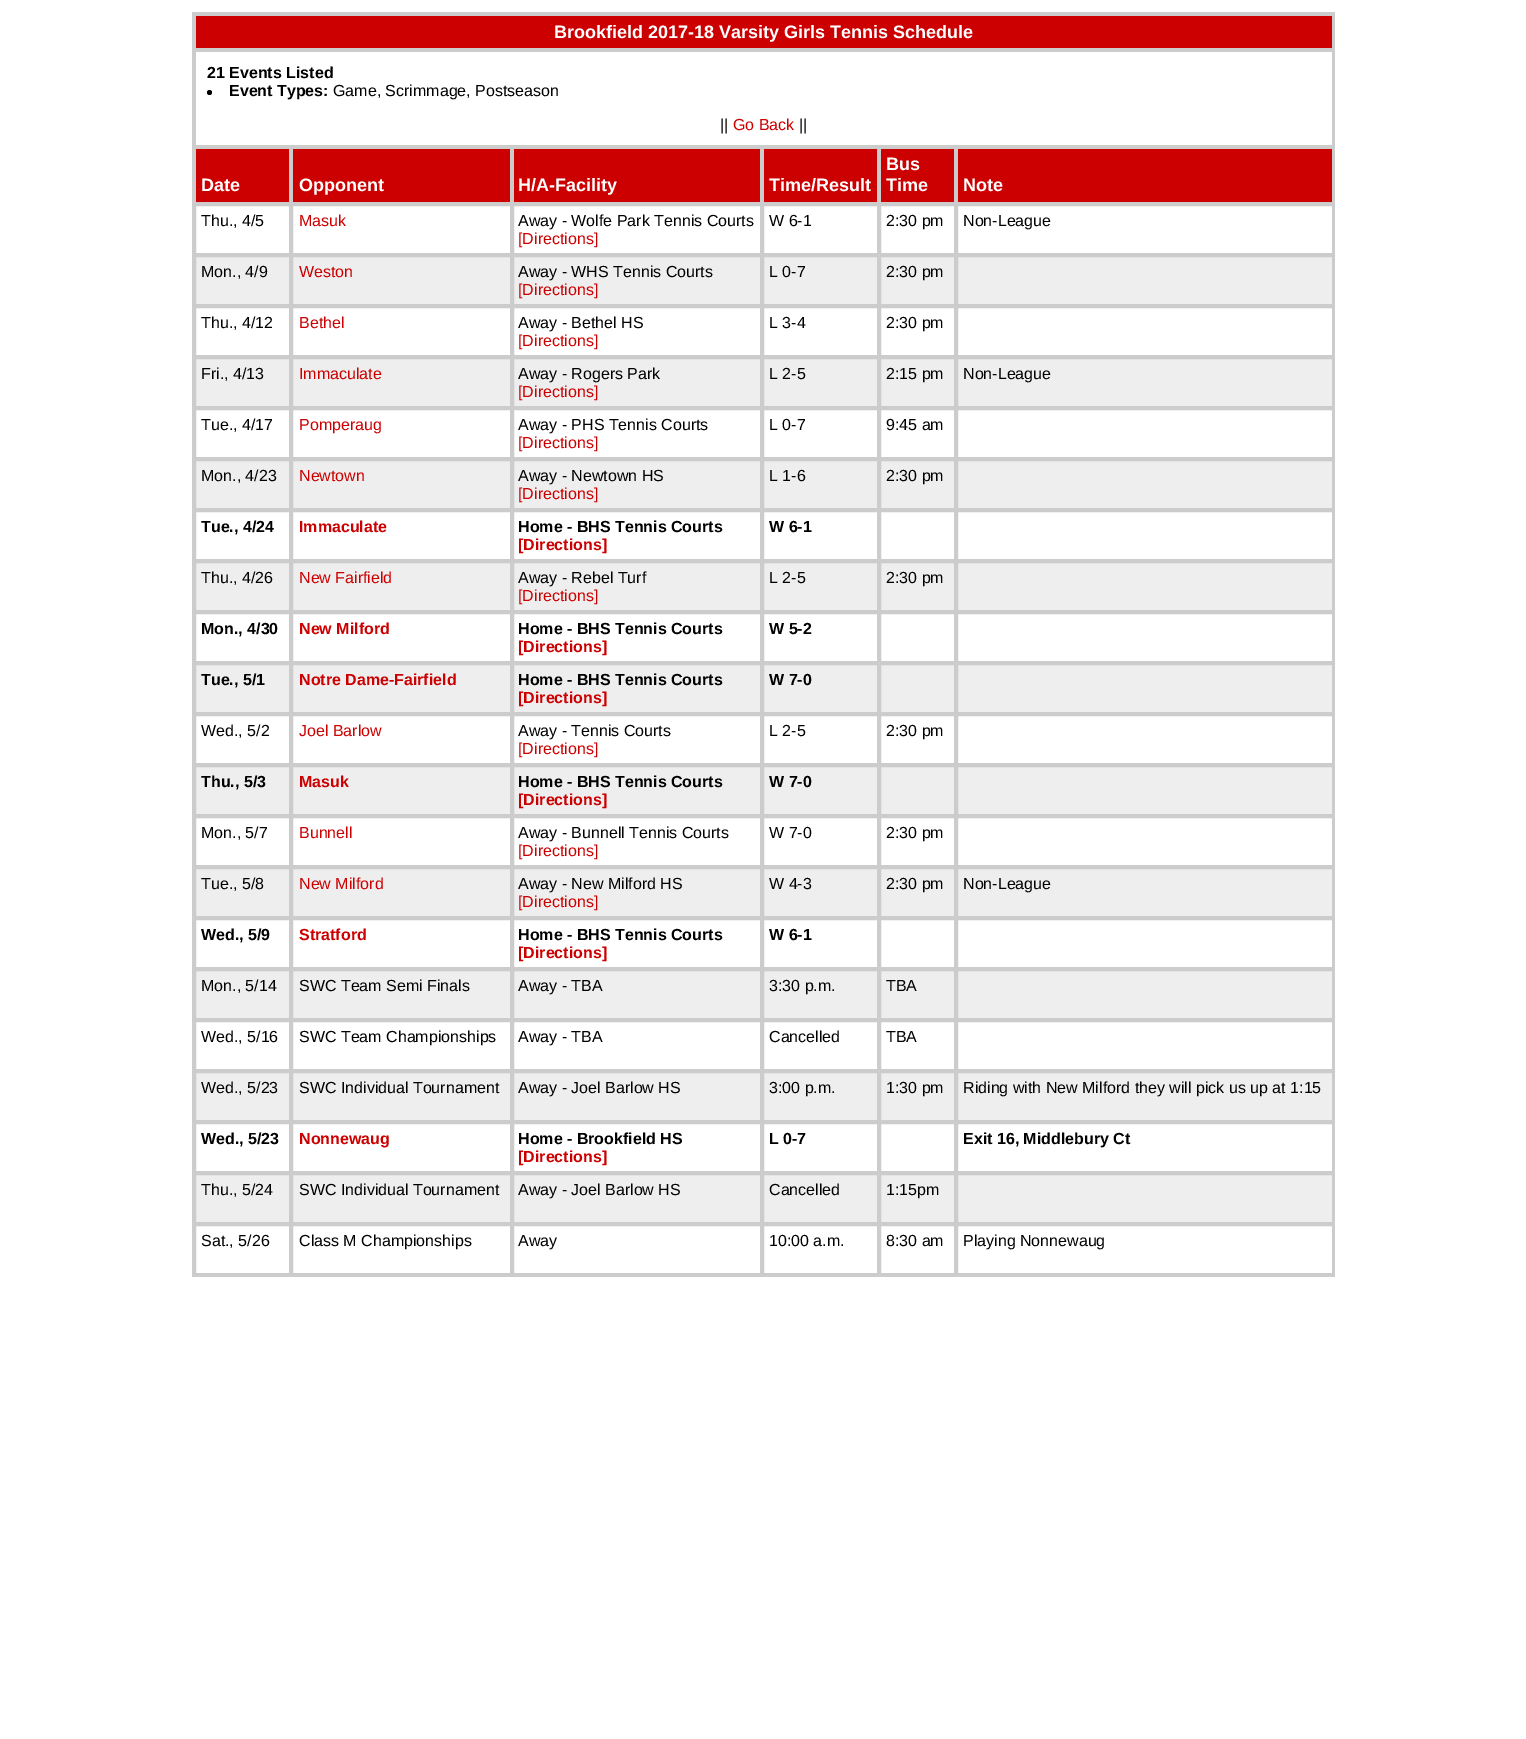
%!PS
<< /PageSize [1526 1739] >> setpagedevice
/f/fill load def
/w/setlinewidth load def
/C { dup -16 bitshift 255 div exch dup -8 bitshift 255 and 255 div exch 255 and 255 div setrgbcolor } def
/F { [ exch dup neg 0 0 3 -1 roll 0 0 ] selectfont } def
/T { moveto show } def
/R { rectfill } def
/O { newpath 0 360 arc closepath } def
0 1739 translate 1 -1 scale
4 setmiterlimit
16#FFFFFF C
0 0 1526 1739 R
16#CCCCCC C
192 12 1143 1265 R
16#CC0000 C
196 16 1136 32 R
/LiberationSans-Bold 18 F
16#FFFFFF C
(Brookfield 2017-18 Varsity Girls Tennis Schedule) 554 38 T
196 52 1136 93 R
/LiberationSans-Bold 16 F
16#000000 C
(21 Events Listed) 207 78 T
209.5 92.5 2.5 O f
(Event Types:) 229 96 T
/LiberationSans-Regular 16 F
(Game, Scrimmage, Postseason) 333 96 T
(||) 720 130 T
16#CC0000 C
(Go Back) 733 130 T
16#000000 C
(||) 799 130 T
16#CC0000 C
196 149 93 53 R
/LiberationSans-Bold 18 F
16#FFFFFF C
(Date) 201 191 T
16#CC0000 C
293 149 217 53 R
16#FFFFFF C
(Opponent) 299 191 T
16#CC0000 C
514 149 246 53 R
16#FFFFFF C
(H/A-Facility) 518 191 T
16#CC0000 C
764 149 113 53 R
16#FFFFFF C
(Time/Result) 769 191 T
16#CC0000 C
881 149 73 53 R
16#FFFFFF C
(Bus) 886 170 T
(Time) 886 191 T
16#CC0000 C
958 149 374 53 R
16#FFFFFF C
(Note) 963 191 T
196 206 1136 47 R
16#CCCCCC C
2 w
195 205 95 49 rectstroke
/LiberationSans-Regular 16 F
16#000000 C
(Thu., 4/5) 201 226 T
16#CCCCCC C
292 205 219 49 rectstroke
16#CC0000 C
(Masuk) 299 226 T
16#CCCCCC C
513 205 248 49 rectstroke
16#000000 C
(Away - Wolfe Park Tennis Courts) 518 226 T
16#CC0000 C
([Directions]) 518 244 T
16#CCCCCC C
763 205 115 49 rectstroke
16#000000 C
(W 6-1) 769 226 T
16#CCCCCC C
880 205 75 49 rectstroke
16#000000 C
(2:30 pm) 886 226 T
16#CCCCCC C
957 205 376 49 rectstroke
16#000000 C
(Non-League) 963 226 T
16#EEEEEE C
196 257 1136 47 R
16#CCCCCC C
195 256 95 49 rectstroke
16#000000 C
(Mon., 4/9) 201 277 T
16#CCCCCC C
292 256 219 49 rectstroke
16#CC0000 C
(Weston) 299 277 T
16#CCCCCC C
513 256 248 49 rectstroke
16#000000 C
(Away - WHS Tennis Courts) 518 277 T
16#CC0000 C
([Directions]) 518 295 T
16#CCCCCC C
763 256 115 49 rectstroke
16#000000 C
(L 0-7) 769 277 T
16#CCCCCC C
880 256 75 49 rectstroke
16#000000 C
(2:30 pm) 886 277 T
16#CCCCCC C
957 256 376 49 rectstroke
16#FFFFFF C
196 308 1136 47 R
16#CCCCCC C
195 307 95 49 rectstroke
16#000000 C
(Thu., 4/12) 201 328 T
16#CCCCCC C
292 307 219 49 rectstroke
16#CC0000 C
(Bethel) 299 328 T
16#CCCCCC C
513 307 248 49 rectstroke
16#000000 C
(Away - Bethel HS) 518 328 T
16#CC0000 C
([Directions]) 518 346 T
16#CCCCCC C
763 307 115 49 rectstroke
16#000000 C
(L 3-4) 769 328 T
16#CCCCCC C
880 307 75 49 rectstroke
16#000000 C
(2:30 pm) 886 328 T
16#CCCCCC C
957 307 376 49 rectstroke
16#EEEEEE C
196 359 1136 47 R
16#CCCCCC C
195 358 95 49 rectstroke
16#000000 C
(Fri., 4/13) 201 379 T
16#CCCCCC C
292 358 219 49 rectstroke
16#CC0000 C
(Immaculate) 299 379 T
16#CCCCCC C
513 358 248 49 rectstroke
16#000000 C
(Away - Rogers Park) 518 379 T
16#CC0000 C
([Directions]) 518 397 T
16#CCCCCC C
763 358 115 49 rectstroke
16#000000 C
(L 2-5) 769 379 T
16#CCCCCC C
880 358 75 49 rectstroke
16#000000 C
(2:15 pm) 886 379 T
16#CCCCCC C
957 358 376 49 rectstroke
16#000000 C
(Non-League) 963 379 T
16#FFFFFF C
196 410 1136 47 R
16#CCCCCC C
195 409 95 49 rectstroke
16#000000 C
(Tue., 4/17) 201 430 T
16#CCCCCC C
292 409 219 49 rectstroke
16#CC0000 C
(Pomperaug) 299 430 T
16#CCCCCC C
513 409 248 49 rectstroke
16#000000 C
(Away - PHS Tennis Courts) 518 430 T
16#CC0000 C
([Directions]) 518 448 T
16#CCCCCC C
763 409 115 49 rectstroke
16#000000 C
(L 0-7) 769 430 T
16#CCCCCC C
880 409 75 49 rectstroke
16#000000 C
(9:45 am) 886 430 T
16#CCCCCC C
957 409 376 49 rectstroke
16#EEEEEE C
196 461 1136 47 R
16#CCCCCC C
195 460 95 49 rectstroke
16#000000 C
(Mon., 4/23) 201 481 T
16#CCCCCC C
292 460 219 49 rectstroke
16#CC0000 C
(Newtown) 299 481 T
16#CCCCCC C
513 460 248 49 rectstroke
16#000000 C
(Away - Newtown HS) 518 481 T
16#CC0000 C
([Directions]) 518 499 T
16#CCCCCC C
763 460 115 49 rectstroke
16#000000 C
(L 1-6) 769 481 T
16#CCCCCC C
880 460 75 49 rectstroke
16#000000 C
(2:30 pm) 886 481 T
16#CCCCCC C
957 460 376 49 rectstroke
16#FFFFFF C
196 512 1136 47 R
16#CCCCCC C
195 511 95 49 rectstroke
/LiberationSans-Bold 16 F
16#000000 C
(Tue., 4/24) 201 532 T
16#CCCCCC C
292 511 219 49 rectstroke
16#CC0000 C
(Immaculate) 299 532 T
16#CCCCCC C
513 511 248 49 rectstroke
16#000000 C
(Home - BHS Tennis Courts) 518 532 T
16#CC0000 C
([Directions]) 518 550 T
16#CCCCCC C
763 511 115 49 rectstroke
16#000000 C
(W 6-1) 769 532 T
16#CCCCCC C
880 511 75 49 rectstroke
957 511 376 49 rectstroke
16#EEEEEE C
196 563 1136 47 R
16#CCCCCC C
195 562 95 49 rectstroke
/LiberationSans-Regular 16 F
16#000000 C
(Thu., 4/26) 201 583 T
16#CCCCCC C
292 562 219 49 rectstroke
16#CC0000 C
(New Fairfield) 299 583 T
16#CCCCCC C
513 562 248 49 rectstroke
16#000000 C
(Away - Rebel Turf) 518 583 T
16#CC0000 C
([Directions]) 518 601 T
16#CCCCCC C
763 562 115 49 rectstroke
16#000000 C
(L 2-5) 769 583 T
16#CCCCCC C
880 562 75 49 rectstroke
16#000000 C
(2:30 pm) 886 583 T
16#CCCCCC C
957 562 376 49 rectstroke
16#FFFFFF C
196 614 1136 47 R
16#CCCCCC C
195 613 95 49 rectstroke
/LiberationSans-Bold 16 F
16#000000 C
(Mon., 4/30) 201 634 T
16#CCCCCC C
292 613 219 49 rectstroke
16#CC0000 C
(New Milford) 299 634 T
16#CCCCCC C
513 613 248 49 rectstroke
16#000000 C
(Home - BHS Tennis Courts) 518 634 T
16#CC0000 C
([Directions]) 518 652 T
16#CCCCCC C
763 613 115 49 rectstroke
16#000000 C
(W 5-2) 769 634 T
16#CCCCCC C
880 613 75 49 rectstroke
957 613 376 49 rectstroke
16#EEEEEE C
196 665 1136 47 R
16#CCCCCC C
195 664 95 49 rectstroke
16#000000 C
(Tue., 5/1) 201 685 T
16#CCCCCC C
292 664 219 49 rectstroke
16#CC0000 C
(Notre Dame-Fairfield) 299 685 T
16#CCCCCC C
513 664 248 49 rectstroke
16#000000 C
(Home - BHS Tennis Courts) 518 685 T
16#CC0000 C
([Directions]) 518 703 T
16#CCCCCC C
763 664 115 49 rectstroke
16#000000 C
(W 7-0) 769 685 T
16#CCCCCC C
880 664 75 49 rectstroke
957 664 376 49 rectstroke
16#FFFFFF C
196 716 1136 47 R
16#CCCCCC C
195 715 95 49 rectstroke
/LiberationSans-Regular 16 F
16#000000 C
(Wed., 5/2) 201 736 T
16#CCCCCC C
292 715 219 49 rectstroke
16#CC0000 C
(Joel Barlow) 299 736 T
16#CCCCCC C
513 715 248 49 rectstroke
16#000000 C
(Away - Tennis Courts) 518 736 T
16#CC0000 C
([Directions]) 518 754 T
16#CCCCCC C
763 715 115 49 rectstroke
16#000000 C
(L 2-5) 769 736 T
16#CCCCCC C
880 715 75 49 rectstroke
16#000000 C
(2:30 pm) 886 736 T
16#CCCCCC C
957 715 376 49 rectstroke
16#EEEEEE C
196 767 1136 47 R
16#CCCCCC C
195 766 95 49 rectstroke
/LiberationSans-Bold 16 F
16#000000 C
(Thu., 5/3) 201 787 T
16#CCCCCC C
292 766 219 49 rectstroke
16#CC0000 C
(Masuk) 299 787 T
16#CCCCCC C
513 766 248 49 rectstroke
16#000000 C
(Home - BHS Tennis Courts) 518 787 T
16#CC0000 C
([Directions]) 518 805 T
16#CCCCCC C
763 766 115 49 rectstroke
16#000000 C
(W 7-0) 769 787 T
16#CCCCCC C
880 766 75 49 rectstroke
957 766 376 49 rectstroke
16#FFFFFF C
196 818 1136 47 R
16#CCCCCC C
195 817 95 49 rectstroke
/LiberationSans-Regular 16 F
16#000000 C
(Mon., 5/7) 201 838 T
16#CCCCCC C
292 817 219 49 rectstroke
16#CC0000 C
(Bunnell) 299 838 T
16#CCCCCC C
513 817 248 49 rectstroke
16#000000 C
(Away - Bunnell Tennis Courts) 518 838 T
16#CC0000 C
([Directions]) 518 856 T
16#CCCCCC C
763 817 115 49 rectstroke
16#000000 C
(W 7-0) 769 838 T
16#CCCCCC C
880 817 75 49 rectstroke
16#000000 C
(2:30 pm) 886 838 T
16#CCCCCC C
957 817 376 49 rectstroke
16#EEEEEE C
196 869 1136 47 R
16#CCCCCC C
195 868 95 49 rectstroke
16#000000 C
(Tue., 5/8) 201 889 T
16#CCCCCC C
292 868 219 49 rectstroke
16#CC0000 C
(New Milford) 299 889 T
16#CCCCCC C
513 868 248 49 rectstroke
16#000000 C
(Away - New Milford HS) 518 889 T
16#CC0000 C
([Directions]) 518 907 T
16#CCCCCC C
763 868 115 49 rectstroke
16#000000 C
(W 4-3) 769 889 T
16#CCCCCC C
880 868 75 49 rectstroke
16#000000 C
(2:30 pm) 886 889 T
16#CCCCCC C
957 868 376 49 rectstroke
16#000000 C
(Non-League) 963 889 T
16#FFFFFF C
196 920 1136 47 R
16#CCCCCC C
195 919 95 49 rectstroke
/LiberationSans-Bold 16 F
16#000000 C
(Wed., 5/9) 201 940 T
16#CCCCCC C
292 919 219 49 rectstroke
16#CC0000 C
(Stratford) 299 940 T
16#CCCCCC C
513 919 248 49 rectstroke
16#000000 C
(Home - BHS Tennis Courts) 518 940 T
16#CC0000 C
([Directions]) 518 958 T
16#CCCCCC C
763 919 115 49 rectstroke
16#000000 C
(W 6-1) 769 940 T
16#CCCCCC C
880 919 75 49 rectstroke
957 919 376 49 rectstroke
16#EEEEEE C
196 971 1136 47 R
16#CCCCCC C
195 970 95 49 rectstroke
/LiberationSans-Regular 16 F
16#000000 C
(Mon., 5/14) 201 991 T
16#CCCCCC C
292 970 219 49 rectstroke
16#000000 C
(SWC Team Semi Finals) 299 991 T
16#CCCCCC C
513 970 248 49 rectstroke
16#000000 C
(Away - TBA) 518 991 T
16#CCCCCC C
763 970 115 49 rectstroke
16#000000 C
(3:30 p.m.) 769 991 T
16#CCCCCC C
880 970 75 49 rectstroke
16#000000 C
(TBA) 886 991 T
16#CCCCCC C
957 970 376 49 rectstroke
16#FFFFFF C
196 1022 1136 47 R
16#CCCCCC C
195 1021 95 49 rectstroke
16#000000 C
(Wed., 5/16) 201 1042 T
16#CCCCCC C
292 1021 219 49 rectstroke
16#000000 C
(SWC Team Championships) 299 1042 T
16#CCCCCC C
513 1021 248 49 rectstroke
16#000000 C
(Away - TBA) 518 1042 T
16#CCCCCC C
763 1021 115 49 rectstroke
16#000000 C
(Cancelled) 769 1042 T
16#CCCCCC C
880 1021 75 49 rectstroke
16#000000 C
(TBA) 886 1042 T
16#CCCCCC C
957 1021 376 49 rectstroke
16#EEEEEE C
196 1073 1136 47 R
16#CCCCCC C
195 1072 95 49 rectstroke
16#000000 C
(Wed., 5/23) 201 1093 T
16#CCCCCC C
292 1072 219 49 rectstroke
16#000000 C
(SWC Individual Tournament) 299 1093 T
16#CCCCCC C
513 1072 248 49 rectstroke
16#000000 C
(Away - Joel Barlow HS) 518 1093 T
16#CCCCCC C
763 1072 115 49 rectstroke
16#000000 C
(3:00 p.m.) 769 1093 T
16#CCCCCC C
880 1072 75 49 rectstroke
16#000000 C
(1:30 pm) 886 1093 T
16#CCCCCC C
957 1072 376 49 rectstroke
16#000000 C
(Riding with New Milford they will pick us up at 1:15) 963 1093 T
16#FFFFFF C
196 1124 1136 47 R
16#CCCCCC C
195 1123 95 49 rectstroke
/LiberationSans-Bold 16 F
16#000000 C
(Wed., 5/23) 201 1144 T
16#CCCCCC C
292 1123 219 49 rectstroke
16#CC0000 C
(Nonnewaug) 299 1144 T
16#CCCCCC C
513 1123 248 49 rectstroke
16#000000 C
(Home - Brookfield HS) 518 1144 T
16#CC0000 C
([Directions]) 518 1162 T
16#CCCCCC C
763 1123 115 49 rectstroke
16#000000 C
(L 0-7) 769 1144 T
16#CCCCCC C
880 1123 75 49 rectstroke
957 1123 376 49 rectstroke
16#000000 C
(Exit 16, Middlebury Ct) 963 1144 T
16#EEEEEE C
196 1175 1136 47 R
16#CCCCCC C
195 1174 95 49 rectstroke
/LiberationSans-Regular 16 F
16#000000 C
(Thu., 5/24) 201 1195 T
16#CCCCCC C
292 1174 219 49 rectstroke
16#000000 C
(SWC Individual Tournament) 299 1195 T
16#CCCCCC C
513 1174 248 49 rectstroke
16#000000 C
(Away - Joel Barlow HS) 518 1195 T
16#CCCCCC C
763 1174 115 49 rectstroke
16#000000 C
(Cancelled) 769 1195 T
16#CCCCCC C
880 1174 75 49 rectstroke
16#000000 C
(1:15pm) 886 1195 T
16#CCCCCC C
957 1174 376 49 rectstroke
16#FFFFFF C
196 1226 1136 47 R
16#CCCCCC C
195 1225 95 49 rectstroke
16#000000 C
(Sat., 5/26) 201 1246 T
16#CCCCCC C
292 1225 219 49 rectstroke
16#000000 C
(Class M Championships) 299 1246 T
16#CCCCCC C
513 1225 248 49 rectstroke
16#000000 C
(Away) 518 1246 T
16#CCCCCC C
763 1225 115 49 rectstroke
16#000000 C
(10:00 a.m.) 769 1246 T
16#CCCCCC C
880 1225 75 49 rectstroke
16#000000 C
(8:30 am) 886 1246 T
16#CCCCCC C
957 1225 376 49 rectstroke
16#000000 C
(Playing Nonnewaug) 963 1246 T
showpage
